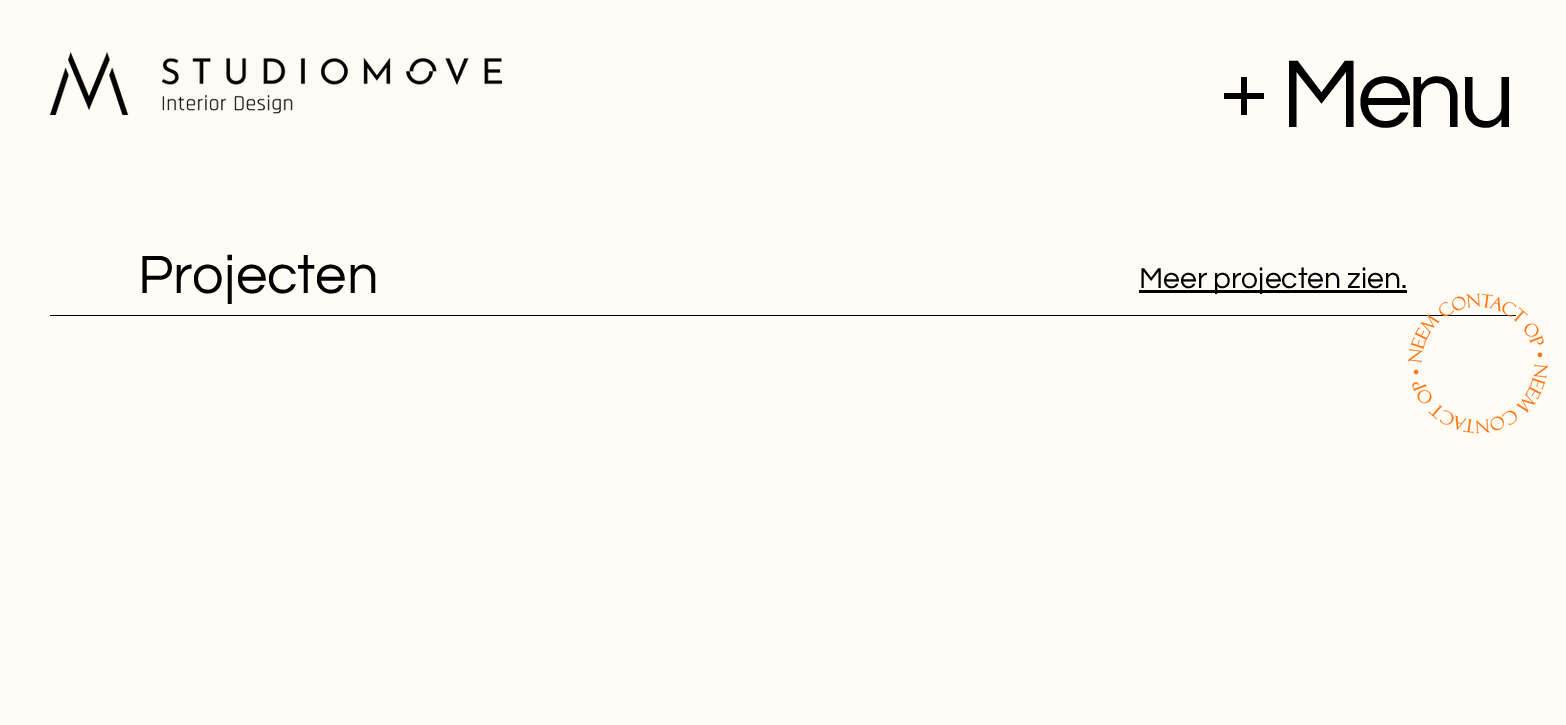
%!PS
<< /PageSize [1566 725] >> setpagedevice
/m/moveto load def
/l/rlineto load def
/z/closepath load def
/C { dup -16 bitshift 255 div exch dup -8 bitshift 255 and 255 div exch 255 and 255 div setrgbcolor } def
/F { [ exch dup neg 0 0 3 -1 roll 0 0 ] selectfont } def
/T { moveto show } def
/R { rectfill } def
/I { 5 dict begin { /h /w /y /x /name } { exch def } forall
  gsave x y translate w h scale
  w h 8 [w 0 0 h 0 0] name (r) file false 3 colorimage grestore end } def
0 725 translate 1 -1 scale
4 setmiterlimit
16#FFFCF5 C
0 0 1566 725 R
(1.rgb) 50 52 452 63 I
16#000000 C
1241 77 m 0 16 l -17 0 l 0 6 l 17 0 l 0 16 l 6 0 l 0 -16 l 17 0 l 0 -6 l -17 0 l 0 -16 l z eofill
/Questrial-Regular 100 F
1281 127 m -5 0 (Menu) ashow
/Questrial-Regular 56 F
(Projecten) 138 293 T
1139 290 268 3 R
/Questrial-Regular 30 F
(Meer projecten zien.) 1139 288 T
50 315 1466 1 R
(2.rgb) 1408 293 140 141 I
showpage
